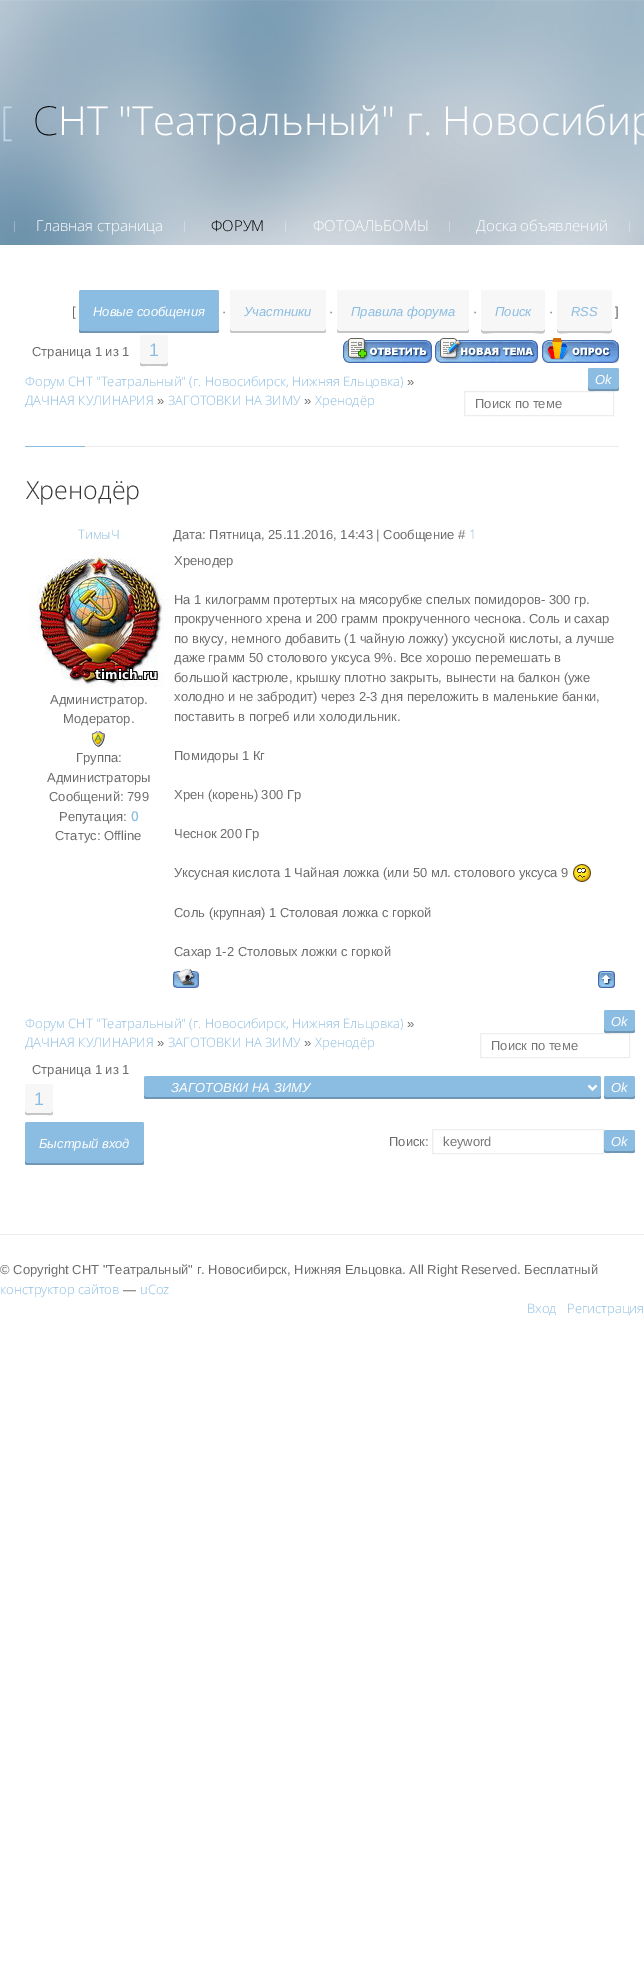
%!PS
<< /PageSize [644 1965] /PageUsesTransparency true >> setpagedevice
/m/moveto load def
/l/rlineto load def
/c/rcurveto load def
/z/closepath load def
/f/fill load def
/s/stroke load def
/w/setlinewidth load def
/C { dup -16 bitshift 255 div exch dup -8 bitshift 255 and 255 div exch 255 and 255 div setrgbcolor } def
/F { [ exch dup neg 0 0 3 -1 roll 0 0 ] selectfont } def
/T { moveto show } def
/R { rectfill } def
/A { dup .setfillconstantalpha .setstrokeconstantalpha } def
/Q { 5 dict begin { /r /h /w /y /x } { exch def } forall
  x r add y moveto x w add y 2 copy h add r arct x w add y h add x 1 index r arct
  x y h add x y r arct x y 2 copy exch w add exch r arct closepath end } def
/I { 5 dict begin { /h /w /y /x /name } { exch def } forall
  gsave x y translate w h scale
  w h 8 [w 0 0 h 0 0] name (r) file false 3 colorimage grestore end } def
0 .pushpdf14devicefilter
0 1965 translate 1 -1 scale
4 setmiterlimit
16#FFFFFF C
0 0 644 1965 R
(1.rgb) 0 0 644 245 I
/OpenSans-Light 40 F
16#BDD8EB C
([) 0 135 T
/NotoSans-Thin 40 F
16#000000 C
(С) 33 135 T
/OpenSans-Light 40 F
16#FFFFFF C
(НТ "Театральный" г. Новосибир) 58 135 T
16#9BB4C5 C
14 221 1 11 R
/OpenSans-Light 15 F
16#FFFFFF C
(Главная страница) 36 231 T
0.3 A
184 221 1 11 R
1 A
16#000000 C
(ФОРУМ) 211 231 T
0.3 A
16#FFFFFF C
285 221 1 11 R
1 A
(ФОТОАЛЬБОМЫ) 313 231 T
16#CFD6DD C
449 221 1 11 R
16#FFFFFF C
(Доска объявлений) 476 231 T
16#D3DBE2 C
629 221 1 11 R
/LiberationSans-Regular 13 F
16#6C6C6C C
([) 72 316 T
16#8BBCE1 C
79 290 140 43 2 Q f
0.2 A
16#000000 C
79 329 m 0 2 l 0 1 1 2 2 2 c 136 0 l 1 0 2 -1 2 -2 c 0 -2 l 0 1 -1 2 -2 2 c -136 0 l -1 0 -2 -1 -2 -2 c z f
/LiberationSans-Italic 13 F
1 A
16#FFFFFF C
(Новые сообщения) 93 316 T
/LiberationSans-Regular 13 F
16#6C6C6C C
(·) 222 316 T
16#F7F7F7 C
230 290 96 43 2 Q f
16#C6C6C6 C
230 329 m 0 2 l 0 1 1 2 2 2 c 92 0 l 1 0 2 -1 2 -2 c 0 -2 l 0 1 -1 2 -2 2 c -92 0 l -1 0 -2 -1 -2 -2 c z f
/LiberationSans-Italic 13 F
16#8BBCE1 C
(Участники) 244 316 T
/LiberationSans-Regular 13 F
16#6C6C6C C
(·) 329 316 T
16#F7F7F7 C
337 290 132 43 2 Q f
16#C6C6C6 C
337 329 m 0 2 l 0 1 1 2 2 2 c 128 0 l 1 0 2 -1 2 -2 c 0 -2 l 0 1 -1 2 -2 2 c -128 0 l -1 0 -2 -1 -2 -2 c z f
/LiberationSans-Italic 13 F
16#8BBCE1 C
(Правила форума) 351 316 T
/LiberationSans-Regular 13 F
16#6C6C6C C
(·) 473 316 T
16#F7F7F7 C
481 290 64 43 2 Q f
0.2 A
16#000000 C
481 329 m 0 7 5 4 12 4 c 40 0 l 7 0 12 3 12 -4 c 0 1 -1 2 -2 2 c -60 0 l -1 0 -2 -1 -2 -2 c z f
/LiberationSans-Italic 13 F
1 A
16#8BBCE1 C
(Поиск) 495 316 T
/LiberationSans-Regular 13 F
16#6C6C6C C
(·) 549 316 T
16#F7F7F7 C
557 290 55 43 2 Q f
16#C6C6C6 C
557 329 m 0 6 4 4 11 4 c 34 0 l 6 0 10 2 10 -4 c -1 2 l -35 0 l -18 0 l z f
/LiberationSans-Italic 13 F
16#8BBCE1 C
(RSS) 571 316 T
/LiberationSans-Regular 13 F
16#6C6C6C C
(]) 615 316 T
(Страница 1 из 1) 32 356 T
16#F7F7F7 C
140 335 28 31 2 Q f
16#C6C6C6 C
140 362 m 0 5 1 4 6 4 c 16 0 l 5 0 6 1 6 -4 c 0 1 -1 2 -2 2 c -24 0 l -1 0 -2 -1 -2 -2 c z f
/LiberationSans-Regular 18 F
16#8BBCE1 C
(1) 149 356 T
(2.rgb) 343 338 89 25 I
(3.rgb) 435 338 103 25 I
(4.rgb) 542 338 77 25 I
/OpenSans-Light 13 F
(Форум СНТ "Театральный" \(г. Новосибирск, Нижняя Ельцовка\)) 25 386 T
/LiberationSans-Regular 13 F
16#6C6C6C C
(») 407 386 T
/OpenSans-Light 13 F
16#8BBCE1 C
(ДАЧНАЯ КУЛИНАРИЯ) 25 405 T
/LiberationSans-Regular 13 F
16#6C6C6C C
(») 157 405 T
/OpenSans-Light 13 F
16#8BBCE1 C
(ЗАГОТОВКИ НА ЗИМУ) 168 405 T
/LiberationSans-Regular 13 F
16#6C6C6C C
(») 304 405 T
/OpenSans-Light 13 F
16#8BBCE1 C
(Хренодёр) 315 405 T
588 368 31 23 2 Q f
16#EDEDED C
464.5 391.5 149 24 rectstroke
0.2 A
16#000000 C
588 387 m 0 5 1.5 4 6.5 4 c 18 0 l 5 0 6.5 1 6.5 -4 c 0 1 -1 2 -2 2 c -27 0 l -1 0 -2 -1 -2 -2 c z f
/LiberationSans-Italic 13 F
1 A
16#FFFFFF C
(Ok) 595 384 T
/LiberationSans-Regular 13 F
16#757575 C
(Поиск по теме) 475 408 T
16#EDEDED C
85 446 534 1 R
16#8BBCE1 C
25 446 60 1 R
/OpenSans-Light 25 F
16#333333 C
(Хренодёр) 26 499 T
/OpenSans-Light 13 F
16#8BBCE1 C
(ТимыЧ) 78 539 T
/LiberationSans-Regular 13 F
16#6C6C6C C
(Дата: Пятница, 25.11.2016, 14:43 | Сообщение #) 173 539 T
/OpenSans-Light 13 F
16#8BBCE1 C
(1) 469 539 T
(5.rgb) 29 551 139 136 I
/LiberationSans-Regular 13 F
16#6C6C6C C
(Администратор.) 50 704 T
(Модератор.) 63 723 T
(6.rgb) 92 731 13 16 I
(Группа:) 76 762 T
(Администраторы) 47 782 T
(Сообщений: 799) 49 801 T
(Репутация:) 59 821 T
/OpenSans-Bold 13 F
16#8BBCE1 C
(0) 131 821 T
/LiberationSans-Regular 13 F
16#6C6C6C C
(Статус: Offline) 55 840 T
(Хренодер) 174 565 T
(На 1 килограмм протертых на мясорубке спелых помидоров- 300 гр.) 174 604 T
(прокрученного хрена и 200 грамм прокрученного чеснока. Соль и сахар) 174 623 T
(по вкусу, немного добавить \(1 чайную ложку\) уксусной кислоты, а лучше) 174 643 T
(даже грамм 50 столового уксуса 9%. Все хорошо перемешать в) 174 662 T
(большой кастрюле, крышку плотно закрыть, вынести на балкон \(уже) 174 682 T
(холодно и не забродит\) через 2-3 дня переложить в маленькие банки,) 174 701 T
(поставить в погреб или холодильник.) 174 721 T
(Помидоры 1 Кг) 174 760 T
(Хрен \(корень\) 300 Гр) 174 799 T
(Чеснок 200 Гр) 174 838 T
(Уксусная кислота 1 Чайная ложка \(или 50 мл. столового уксуса 9) 174 877 T
(7.rgb) 573 864 18 18 I
(Соль \(крупная\) 1 Столовая ложка с горкой) 174 917 T
(Сахар 1-2 Столовых ложки с горкой) 174 956 T
(8.rgb) 173 969 26 19 I
(9.rgb) 598 971 17 17 I
/OpenSans-Light 13 F
16#8BBCE1 C
(Форум СНТ "Театральный" \(г. Новосибирск, Нижняя Ельцовка\)) 25 1028 T
/LiberationSans-Regular 13 F
16#6C6C6C C
(») 407 1028 T
/OpenSans-Light 13 F
16#8BBCE1 C
(ДАЧНАЯ КУЛИНАРИЯ) 25 1047 T
/LiberationSans-Regular 13 F
16#6C6C6C C
(») 157 1047 T
/OpenSans-Light 13 F
16#8BBCE1 C
(ЗАГОТОВКИ НА ЗИМУ) 168 1047 T
/LiberationSans-Regular 13 F
16#6C6C6C C
(») 304 1047 T
/OpenSans-Light 13 F
16#8BBCE1 C
(Хренодёр) 315 1047 T
604 1010 31 23 2 Q f
16#EDEDED C
480.5 1033.5 149 24 rectstroke
0.2 A
16#000000 C
604 1029 m 0 5 1.5 4 6.5 4 c 18 0 l 5 0 6.5 1 6.5 -4 c 0 1 -1 2 -2 2 c -27 0 l -1 0 -2 -1 -2 -2 c z f
/LiberationSans-Italic 13 F
1 A
16#FFFFFF C
(Ok) 611 1026 T
/LiberationSans-Regular 13 F
16#757575 C
(Поиск по теме) 491 1050 T
16#6C6C6C C
(Страница 1 из 1) 32 1074 T
16#F7F7F7 C
25 1084 28 31 2 Q f
16#C6C6C6 C
25 1111 m 0 5 1 4 6 4 c 16 0 l 5 0 6 1 6 -4 c 0 1 -1 2 -2 2 c -24 0 l -1 0 -2 -1 -2 -2 c z f
/LiberationSans-Regular 18 F
16#8BBCE1 C
(1) 34 1105 T
144 1076 457 23 2 Q f
0.2 A
16#000000 C
144 1095 m 0 2 0 4 2 4 c 454 0 l 1 -1 l 0 -3 l 0 1 -1 2 -2 2 c -453 0 l -1 0 -2 -1 -2 -2 c z f
1 A
16#FFFFFF C
2 w
588.5 1085.5 m 4 4 l 4 -4 l s
/LiberationSans-Italic 13 F
(ЗАГОТОВКИ НА ЗИМУ) 171 1092 T
16#8BBCE1 C
604 1076 31 23 2 Q f
0.2 A
16#000000 C
604 1095 m 0 5 1.5 4 6.5 4 c 18 0 l 5 0 6.5 1 6.5 -4 c 0 1 -1 2 -2 2 c -27 0 l -1 0 -2 -1 -2 -2 c z f
1 A
16#FFFFFF C
(Ok) 611 1092 T
16#8BBCE1 C
25 1122 119 43 2 Q f
0.2 A
16#000000 C
25 1161 m 0 2 l 0 1 1 2 2 2 c 115 0 l 1 0 2 -1 2 -2 c 0 -2 l 0 1 -1 2 -2 2 c -115 0 l -1 0 -2 -1 -2 -2 c z f
1 A
16#FFFFFF C
(Быстрый вход) 39 1148 T
/LiberationSans-Regular 13 F
16#6C6C6C C
(Поиск:) 389 1146 T
16#EDEDED C
1 w
432.5 1129.5 171 24 rectstroke
16#757575 C
(keyword) 443 1146 T
16#8BBCE1 C
604 1130 31 23 2 Q f
0.2 A
16#000000 C
604 1149 m 0 5 1.5 4 6.5 4 c 18 0 l 5 0 6.5 1 6.5 -4 c 0 1 -1 2 -2 2 c -27 0 l -1 0 -2 -1 -2 -2 c z f
/LiberationSans-Italic 13 F
1 A
16#FFFFFF C
(Ok) 611 1146 T
16#EDEDED C
0 1234 644 1 R
/LiberationSans-Regular 13 F
16#6C6C6C C
(© Copyright СНТ "Театральный" г. Новосибирск, Нижняя Ельцовка. All Right Reserved. Бесплатный) 0 1274 T
/OpenSans-Light 13 F
16#8BBCE1 C
(конструктор сайтов) 0 1294 T
/LiberationSans-Regular 13 F
16#6C6C6C C
(—) 123 1294 T
/OpenSans-Light 13 F
16#8BBCE1 C
(uCoz) 140 1294 T
(Вход) 527 1313 T
(Регистрация) 567 1313 T
.poppdf14devicefilter showpage
